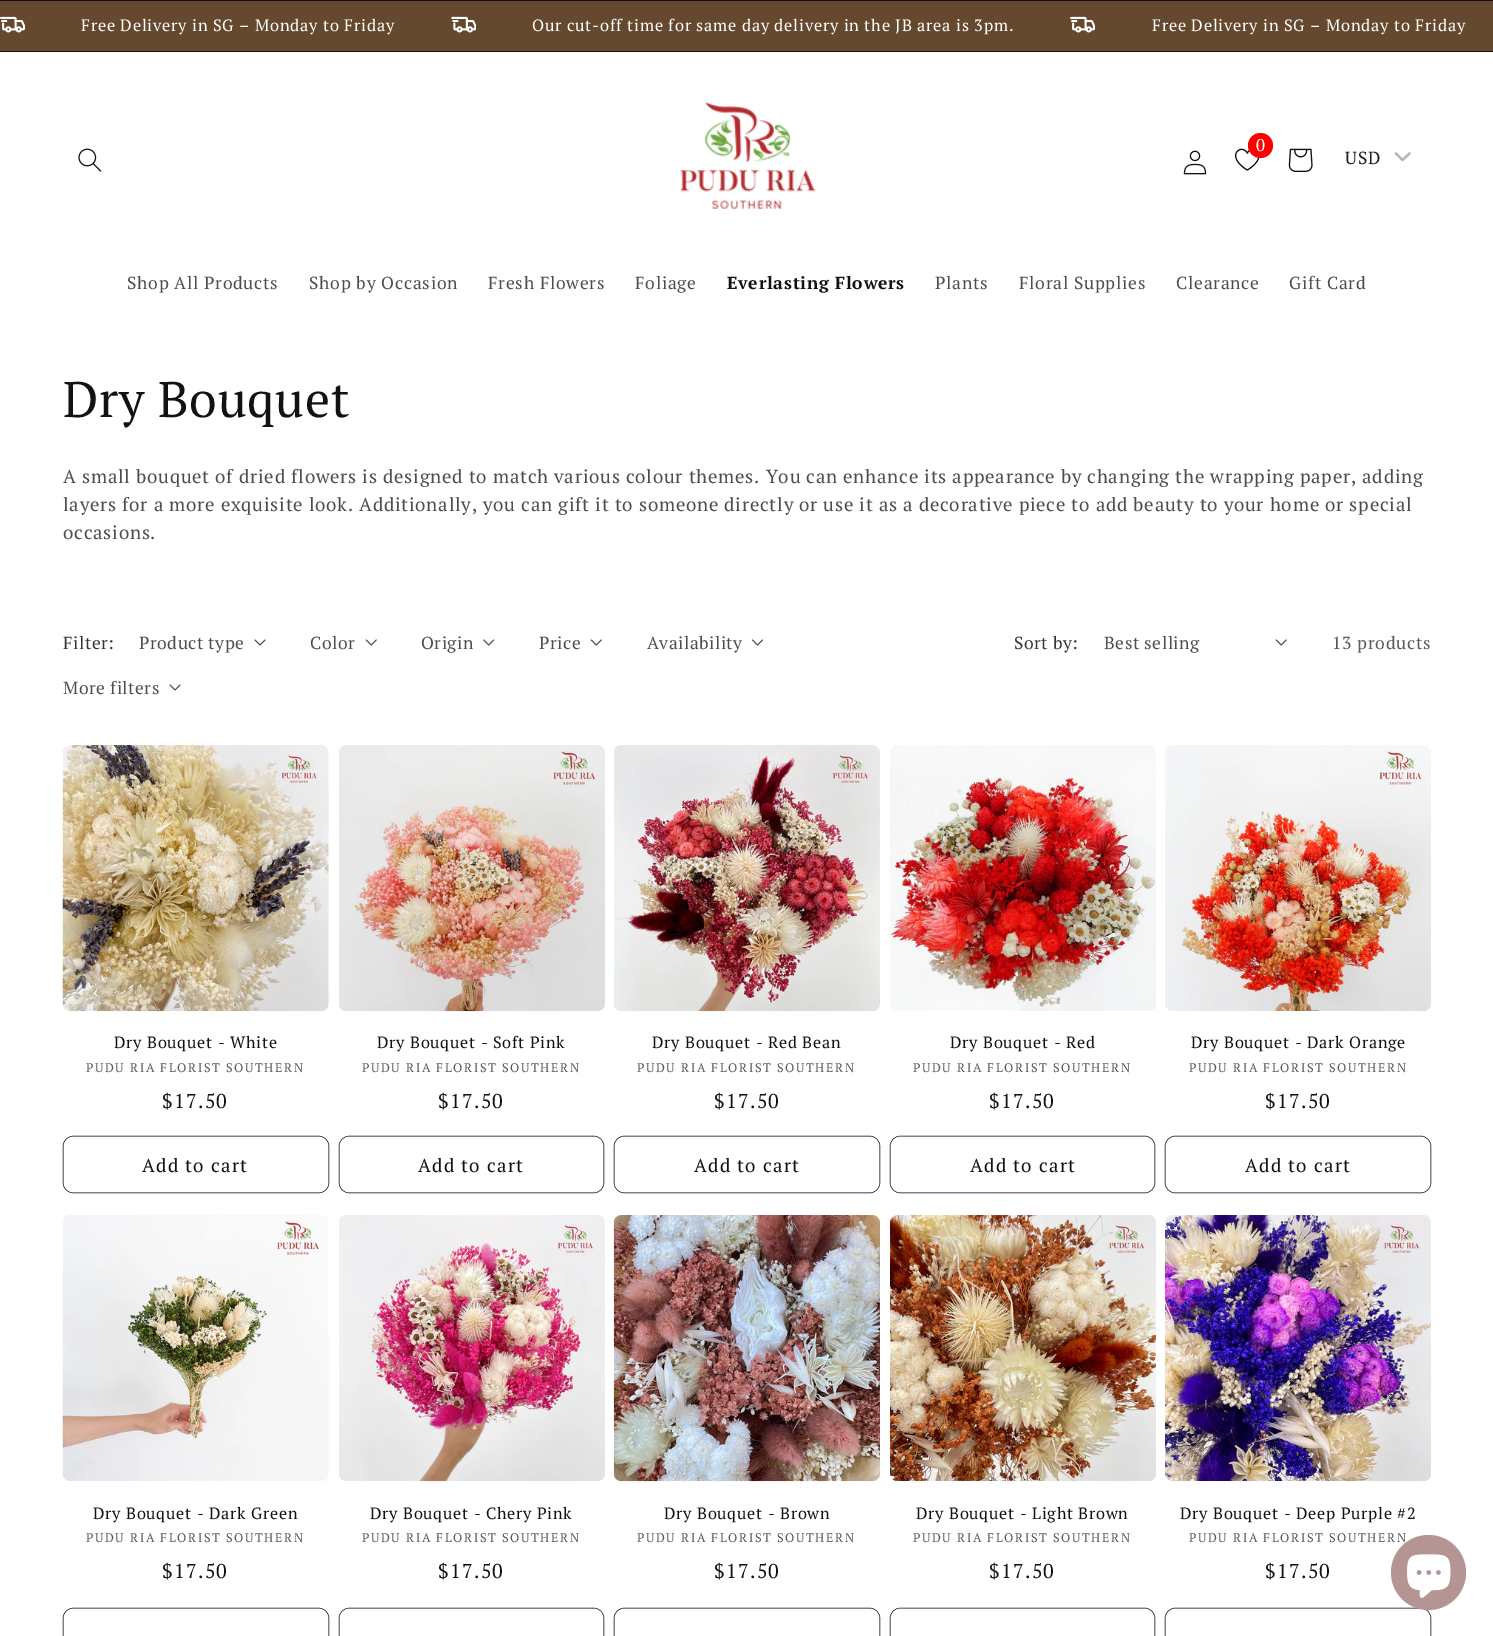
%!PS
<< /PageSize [1493 1636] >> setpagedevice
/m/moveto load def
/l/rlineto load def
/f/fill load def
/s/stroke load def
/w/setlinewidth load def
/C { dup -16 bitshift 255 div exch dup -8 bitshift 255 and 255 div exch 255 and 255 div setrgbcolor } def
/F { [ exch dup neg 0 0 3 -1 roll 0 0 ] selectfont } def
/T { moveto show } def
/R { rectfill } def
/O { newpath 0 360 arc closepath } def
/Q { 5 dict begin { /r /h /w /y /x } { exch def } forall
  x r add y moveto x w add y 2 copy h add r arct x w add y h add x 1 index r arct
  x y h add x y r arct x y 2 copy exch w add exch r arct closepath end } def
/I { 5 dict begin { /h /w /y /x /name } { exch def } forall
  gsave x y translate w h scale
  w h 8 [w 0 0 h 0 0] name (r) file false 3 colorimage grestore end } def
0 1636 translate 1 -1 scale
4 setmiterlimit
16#FFFFFF C
0 0 1493 1636 R
16#65492E C
0 1 1493 50 R
16#121212 C
0 0 1493 1 R
0 51 1493 1 R
(1.rgb) 0 16 25 17 I
/PTSerif-Regular 16.4 F
16#FFFFFF C
81 31 m .75 0 (Free Delivery in SG – Monday to Friday) ashow
(2.rgb) 451 16 25 17 I
532 31 m .75 0 (Our cut-off time for same day delivery in the JB area is 3pm.) ashow
(1.rgb) 1070 16 25 17 I
1152 31 m .75 0 (Free Delivery in SG – Monday to Friday) ashow
(3.rgb) 78 148 24 24 I
(4.rgb) 680 101 136 108 I
(5.rgb) 1235 148 25 23 I
16#FF0001 C
1260.5 145.5 12.5 O f
/PTSerif-Regular 17 F
16#FFFFFF C
(0) 1256 151 T
(6.rgb) 1183 150 24 25 I
(7.rgb) 1288 148 25 24 I
/PTSerif-Regular 17.5 F
16#1E1E1E C
1345 164 m .75 0 (USD) ashow
16#B7B7B7 C
2.3 w
1 setlinecap
1 setlinejoin
1396 153.5 m 6.5 6.5 l 7 -6.5 l s
16#4D4D4D C
127 289 m .75 0 (Shop All Products) ashow
309 289 m .75 0 (Shop by Occasion) ashow
488 289 m .75 0 (Fresh Flowers) ashow
635 289 m .75 0 (Foliage) ashow
/PTSerif-Bold 17.5 F
16#121212 C
727 289 m .75 0 (Everlasting Flowers) ashow
/PTSerif-Regular 17.5 F
16#4D4D4D C
935 289 m .75 0 (Plants) ashow
1019 289 m .75 0 (Floral Supplies) ashow
1176 289 m .75 0 (Clearance) ashow
1289 289 m .75 0 (Gift Card) ashow
/PTSerif-Regular 50 F
16#121212 C
63 417 m .75 0 (Dry Bouquet) ashow
/PTSerif-Regular 18.75 F
16#4D4D4D C
63 483 m .75 0 (A small bouquet of dried flowers is designed to match various colour themes. You can enhance its appearance by changing the wrapping paper, adding) ashow
63 511 m .75 0 (layers for a more exquisite look. Additionally, you can gift it to someone directly or use it as a decorative piece to add beauty to your home or special) ashow
63 539 m .75 0 (occasions.) ashow
/PTSerif-Regular 17.5 F
16#363636 C
63 649 m .5 0 (Filter:) ashow
16#4D4D4D C
139 649 m .5 0 (Product type) ashow
(8.rgb) 254 639 12 7 I
310 649 m .5 0 (Color) ashow
(9.rgb) 365 639 12 7 I
421 649 m .5 0 (Origin) ashow
(10.rgb) 483 639 12 7 I
539 649 m .5 0 (Price) ashow
(9.rgb) 590 639 12 7 I
647 649 m .5 0 (Availability) ashow
(11.rgb) 752 639 11 7 I
63 694 m .5 0 (More filters) ashow
(8.rgb) 169 684 12 7 I
16#363636 C
1014 649 m .5 0 (Sort by:) ashow
16#4D4D4D C
1104 649 m .5 0 (Best selling) ashow
(9.rgb) 1275 639 12 7 I
16#595959 C
1332 649 m .75 0 (13 products) ashow
(12.rgb) 62 745 267 267 I
/PTSerif-Regular 16.25 F
16#121212 C
114 1048 m .75 0 (Dry Bouquet - White) ashow
/PTSerif-Regular 12.5 F
16#595959 C
86 1072 m 1.6 0 (PUDU RIA FLORIST SOUTHERN) ashow
/PTSerif-Regular 20 F
16#121212 C
162 1108 m 1.25 0 ($17.50) ashow
.4 w
0 setlinecap
0 setlinejoin
63.2 1136.2 265.6 56.6 9.8 Q s
/PTSerif-Regular 18.75 F
142 1172 m 1.25 0 (Add to cart) ashow
(13.rgb) 339 745 266 267 I
/PTSerif-Regular 16.25 F
377 1048 m .75 0 (Dry Bouquet - Soft Pink) ashow
/PTSerif-Regular 12.5 F
16#595959 C
362 1072 m 1.6 0 (PUDU RIA FLORIST SOUTHERN) ashow
/PTSerif-Regular 20 F
16#121212 C
438 1108 m 1.25 0 ($17.50) ashow
339.2 1136.2 264.6 56.6 9.8 Q s
/PTSerif-Regular 18.75 F
418 1172 m 1.25 0 (Add to cart) ashow
(14.rgb) 614 745 266 267 I
/PTSerif-Regular 16.25 F
652 1048 m .75 0 (Dry Bouquet - Red Bean) ashow
/PTSerif-Regular 12.5 F
16#595959 C
637 1072 m 1.6 0 (PUDU RIA FLORIST SOUTHERN) ashow
/PTSerif-Regular 20 F
16#121212 C
714 1108 m 1.25 0 ($17.50) ashow
614.2 1136.2 265.6 56.6 9.8 Q s
/PTSerif-Regular 18.75 F
694 1172 m 1.25 0 (Add to cart) ashow
(15.rgb) 890 745 266 266 I
/PTSerif-Regular 16.25 F
950 1048 m .75 0 (Dry Bouquet - Red) ashow
/PTSerif-Regular 12.5 F
16#595959 C
913 1072 m 1.6 0 (PUDU RIA FLORIST SOUTHERN) ashow
/PTSerif-Regular 20 F
16#121212 C
989 1108 m 1.25 0 ($17.50) ashow
890.2 1136.2 264.6 56.6 9.8 Q s
/PTSerif-Regular 18.75 F
970 1172 m 1.25 0 (Add to cart) ashow
(16.rgb) 1165 745 266 266 I
/PTSerif-Regular 16.25 F
1191 1048 m .75 0 (Dry Bouquet - Dark Orange) ashow
/PTSerif-Regular 12.5 F
16#595959 C
1189 1072 m 1.6 0 (PUDU RIA FLORIST SOUTHERN) ashow
/PTSerif-Regular 20 F
16#121212 C
1265 1108 m 1.25 0 ($17.50) ashow
1165.2 1136.2 265.6 56.6 9.8 Q s
/PTSerif-Regular 18.75 F
1245 1172 m 1.25 0 (Add to cart) ashow
(17.rgb) 62 1215 267 266 I
/PTSerif-Regular 16.25 F
93 1519 m .75 0 (Dry Bouquet - Dark Green) ashow
/PTSerif-Regular 12.5 F
16#595959 C
86 1542 m 1.6 0 (PUDU RIA FLORIST SOUTHERN) ashow
/PTSerif-Regular 20 F
16#121212 C
162 1578 m 1.25 0 ($17.50) ashow
63.2 1608.2 265.6 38.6 9.8 Q s
(18.rgb) 339 1215 266 267 I
/PTSerif-Regular 16.25 F
370 1519 m .75 0 (Dry Bouquet - Chery Pink) ashow
/PTSerif-Regular 12.5 F
16#595959 C
362 1542 m 1.6 0 (PUDU RIA FLORIST SOUTHERN) ashow
/PTSerif-Regular 20 F
16#121212 C
438 1578 m 1.25 0 ($17.50) ashow
339.2 1608.2 264.6 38.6 9.8 Q s
(19.rgb) 613 1215 267 267 I
/PTSerif-Regular 16.25 F
664 1519 m .75 0 (Dry Bouquet - Brown) ashow
/PTSerif-Regular 12.5 F
16#595959 C
637 1542 m 1.6 0 (PUDU RIA FLORIST SOUTHERN) ashow
/PTSerif-Regular 20 F
16#121212 C
714 1578 m 1.25 0 ($17.50) ashow
614.2 1608.2 265.6 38.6 9.8 Q s
(20.rgb) 890 1215 266 266 I
/PTSerif-Regular 16.25 F
916 1519 m .75 0 (Dry Bouquet - Light Brown) ashow
/PTSerif-Regular 12.5 F
16#595959 C
913 1542 m 1.6 0 (PUDU RIA FLORIST SOUTHERN) ashow
/PTSerif-Regular 20 F
16#121212 C
989 1578 m 1.25 0 ($17.50) ashow
890.2 1608.2 264.6 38.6 9.8 Q s
(21.rgb) 1165 1215 266 266 I
/PTSerif-Regular 16.25 F
1180 1519 m .75 0 (Dry Bouquet - Deep Purple #2) ashow
/PTSerif-Regular 12.5 F
16#595959 C
1189 1542 m 1.6 0 (PUDU RIA FLORIST SOUTHERN) ashow
/PTSerif-Regular 20 F
16#121212 C
1265 1578 m 1.25 0 ($17.50) ashow
1165.2 1608.2 265.6 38.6 9.8 Q s
16#B49594 C
1428.5 1572.5 37.5 O f
(22.rgb) 1407 1554 44 44 I
showpage
